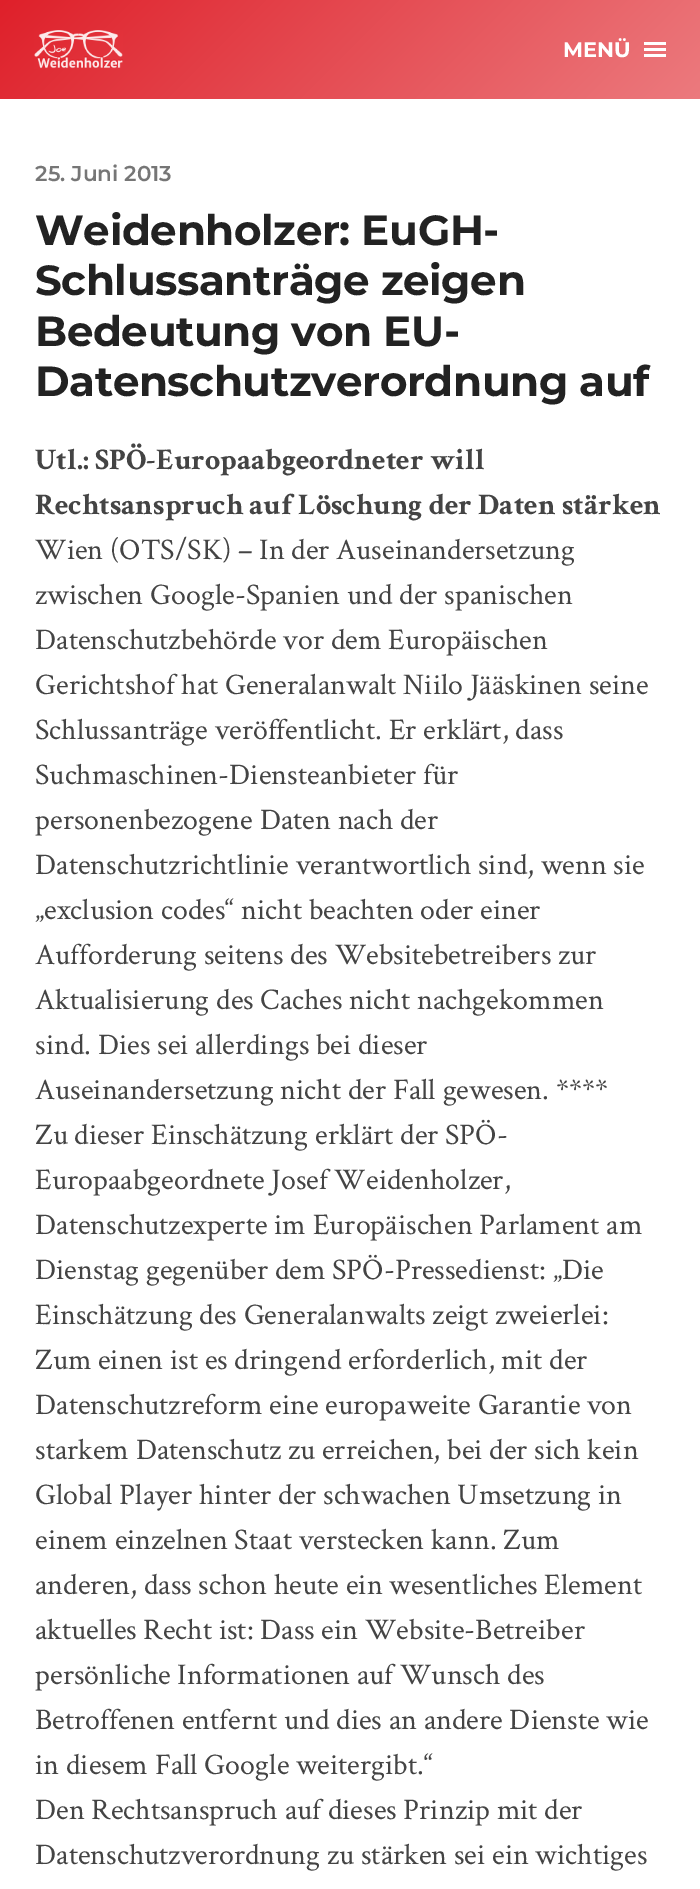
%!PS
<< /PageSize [700 1889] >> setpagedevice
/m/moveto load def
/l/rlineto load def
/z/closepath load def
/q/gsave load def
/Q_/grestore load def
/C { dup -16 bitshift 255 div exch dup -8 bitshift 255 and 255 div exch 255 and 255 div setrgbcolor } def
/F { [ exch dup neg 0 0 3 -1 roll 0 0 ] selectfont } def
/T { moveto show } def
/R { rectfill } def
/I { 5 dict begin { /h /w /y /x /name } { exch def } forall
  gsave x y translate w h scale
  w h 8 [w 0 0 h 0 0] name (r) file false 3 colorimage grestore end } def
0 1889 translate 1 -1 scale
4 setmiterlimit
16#FFFFFF C
0 0 700 1889 R
q 0 0 m 700 0 l 0 99 l -700 0 l z clip newpath
<< /ShadingType 2 /ColorSpace /DeviceRGB /Coords [150 -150 550 249] /Extend [true true] /Function << /FunctionType 2 /Domain [0 1] /C0 [.875 .125 .165] /C1 [.925 .478 .494] /N 1 >> >> shfill Q_
(1.rgb) 34 30 89 39 I
/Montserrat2-Thin 21 F
(MENÜ) 563 57 T
644 42 22 3 R
644 48 22 3 R
644 54 22 3 R
/Montserrat-Thin 21.5 F
16#767676 C
(25. Juni 2013) 35 181 T
/Montserrat2-Thin 42 F
16#222222 C
35 245 m -.4 0 (Weidenholzer: EuGH-) ashow
35 295 m -.4 0 (Schlussanträge zeigen) ashow
35 346 m -.4 0 (Bedeutung von EU-) ashow
35 396 m -.4 0 (Datenschutzverordnung auf) ashow
/CrimsonText-Bold 30 F
16#444444 C
(Utl.: SPÖ-Europaabgeordneter will) 35 469 T
(Rechtsanspruch auf Löschung der Daten stärken) 35 514 T
/CrimsonText-Regular 30 F
(Wien \(OTS/SK\) – In der Auseinandersetzung) 35 559 T
(zwischen Google-Spanien und der spanischen) 35 604 T
(Datenschutzbehörde vor dem Europäischen) 35 649 T
(Gerichtshof hat Generalanwalt Niilo Jääskinen seine) 35 694 T
(Schlussanträge veröffentlicht. Er erklärt, dass) 35 739 T
(Suchmaschinen-Diensteanbieter für) 35 784 T
(personenbezogene Daten nach der) 35 829 T
(Datenschutzrichtlinie verantwortlich sind, wenn sie) 35 874 T
(„exclusion codes“ nicht beachten oder einer) 35 919 T
(Aufforderung seitens des Websitebetreibers zur) 35 964 T
(Aktualisierung des Caches nicht nachgekommen) 35 1009 T
(sind. Dies sei allerdings bei dieser) 35 1054 T
(Auseinandersetzung nicht der Fall gewesen. ****) 35 1099 T
(Zu dieser Einschätzung erklärt der SPÖ-) 35 1144 T
(Europaabgeordnete Josef Weidenholzer,) 35 1189 T
(Datenschutzexperte im Europäischen Parlament am) 35 1234 T
(Dienstag gegenüber dem SPÖ-Pressedienst: „Die) 35 1279 T
(Einschätzung des Generalanwalts zeigt zweierlei:) 35 1324 T
(Zum einen ist es dringend erforderlich, mit der) 35 1369 T
(Datenschutzreform eine europaweite Garantie von) 35 1414 T
(starkem Datenschutz zu erreichen, bei der sich kein) 35 1459 T
(Global Player hinter der schwachen Umsetzung in) 35 1504 T
(einem einzelnen Staat verstecken kann. Zum) 35 1549 T
(anderen, dass schon heute ein wesentliches Element) 35 1594 T
(aktuelles Recht ist: Dass ein Website-Betreiber) 35 1639 T
(persönliche Informationen auf Wunsch des) 35 1684 T
(Betroffenen entfernt und dies an andere Dienste wie) 35 1729 T
(in diesem Fall Google weitergibt.“) 35 1774 T
(Den Rechtsanspruch auf dieses Prinzip mit der) 35 1819 T
(Datenschutzverordnung zu stärken sei ein wichtiges) 35 1864 T
showpage
